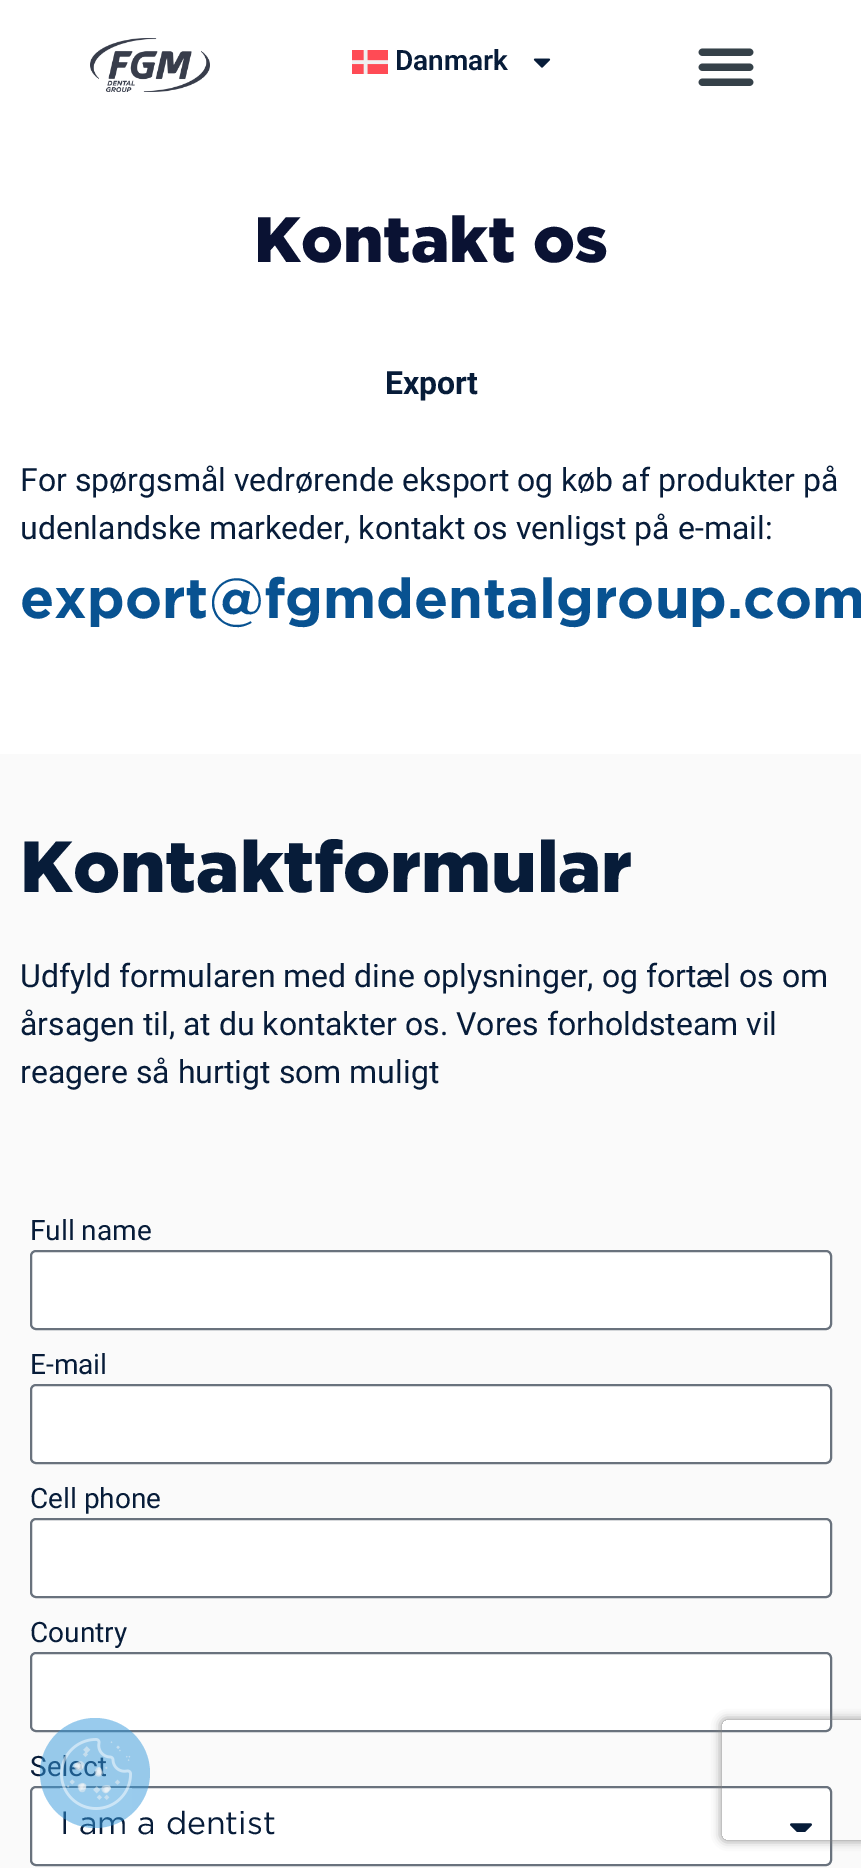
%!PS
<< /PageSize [861 1868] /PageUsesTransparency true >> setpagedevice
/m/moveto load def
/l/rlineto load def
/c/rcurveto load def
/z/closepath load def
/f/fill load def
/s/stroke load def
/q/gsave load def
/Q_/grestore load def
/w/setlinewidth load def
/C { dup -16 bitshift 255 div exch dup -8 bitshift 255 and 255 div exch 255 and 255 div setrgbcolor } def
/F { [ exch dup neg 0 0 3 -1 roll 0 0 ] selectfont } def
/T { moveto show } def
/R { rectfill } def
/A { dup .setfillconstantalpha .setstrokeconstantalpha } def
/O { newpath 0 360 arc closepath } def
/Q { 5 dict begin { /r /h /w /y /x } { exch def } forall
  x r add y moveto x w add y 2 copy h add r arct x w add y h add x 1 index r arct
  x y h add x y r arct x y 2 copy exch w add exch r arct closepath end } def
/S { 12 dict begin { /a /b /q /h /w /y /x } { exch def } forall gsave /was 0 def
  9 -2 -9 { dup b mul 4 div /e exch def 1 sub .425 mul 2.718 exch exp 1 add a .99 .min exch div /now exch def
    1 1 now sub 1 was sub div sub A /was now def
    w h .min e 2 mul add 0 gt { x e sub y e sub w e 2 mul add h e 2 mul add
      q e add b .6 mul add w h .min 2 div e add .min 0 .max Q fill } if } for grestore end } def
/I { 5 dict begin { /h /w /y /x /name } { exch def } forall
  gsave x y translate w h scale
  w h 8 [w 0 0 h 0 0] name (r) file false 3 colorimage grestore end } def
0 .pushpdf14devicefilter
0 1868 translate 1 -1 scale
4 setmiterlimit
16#FFFFFF C
0 0 861 1868 R
(1.rgb) 90 38 120 54 I
(2.rgb) 352 50 36 24 I
/Roboto-SemiBold 28 F
16#071C39 C
(Danmark) 395 70 T
(3.rgb) 533 58 18 10 I
(4.rgb) 698 48 56 38 I
/Gotham-Black 64 F
16#0A1233 C
(Kontakt os) 254 262 T
/Roboto-Bold 32 F
16#071C39 C
(Export) 385 394 T
/Roboto-Regular 32 F
(For spørgsmål vedrørende eksport og køb af produkter på) 20 491 T
(udenlandske markeder, kontakt os venligst på e-mail:) 20 539 T
/Gotham-Bold 56 F
16#085291 C
(export@fgmdentalgroup.com) 20 618 T
16#FAFAFA C
0 754 861 1114 R
/Gotham-Black 72 F
16#071C39 C
(Kontaktformular) 20 892 T
/Roboto-Regular 32 F
(Udfyld formularen med dine oplysninger, og fortæl os om) 20 987 T
(årsagen til, at du kontakter os. Vores forholdsteam vil) 20 1035 T
(reagere så hurtigt som muligt) 20 1083 T
/Roboto-Regular 28 F
(Full name) 30 1240 T
16#FFFFFF C
31 1251 800 78 5 Q q f Q_
16#69727D C
2 w
s
16#071C39 C
(E-mail) 30 1374 T
16#FFFFFF C
31 1385 800 78 5 Q q f Q_
16#69727D C
s
16#071C39 C
(Cell phone) 30 1508 T
16#FFFFFF C
31 1519 800 78 5 Q q f Q_
16#69727D C
s
16#071C39 C
(Country) 30 1642 T
16#FFFFFF C
31 1653 800 78 5 Q q f Q_
16#69727D C
s
16#071C39 C
(Select) 30 1776 T
16#FFFFFF C
31 1787 800 78 5 Q q f Q_
16#69727D C
s
/Gotham-Regular 32 F
16#071C39 C
(I am a dentist) 60 1834 T
(5.rgb) 790 1823 22 9 I
q
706 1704 m 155 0 l 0 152 l -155 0 l z 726 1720 m 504 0 l 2 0 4 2 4 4 c 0 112 l 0 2 -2 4 -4 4 c -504 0 l -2 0 -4 -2 -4 -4 c 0 -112 l 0 -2 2 -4 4 -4 c z eoclip newpath
16#808080 C
722 1720 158 120 4 5 1 S
Q_
0.5 A
16#3498DB C
95 1773 55 O f
1 A
(6.rgb) 60 1738 72 72 I
.poppdf14devicefilter showpage
